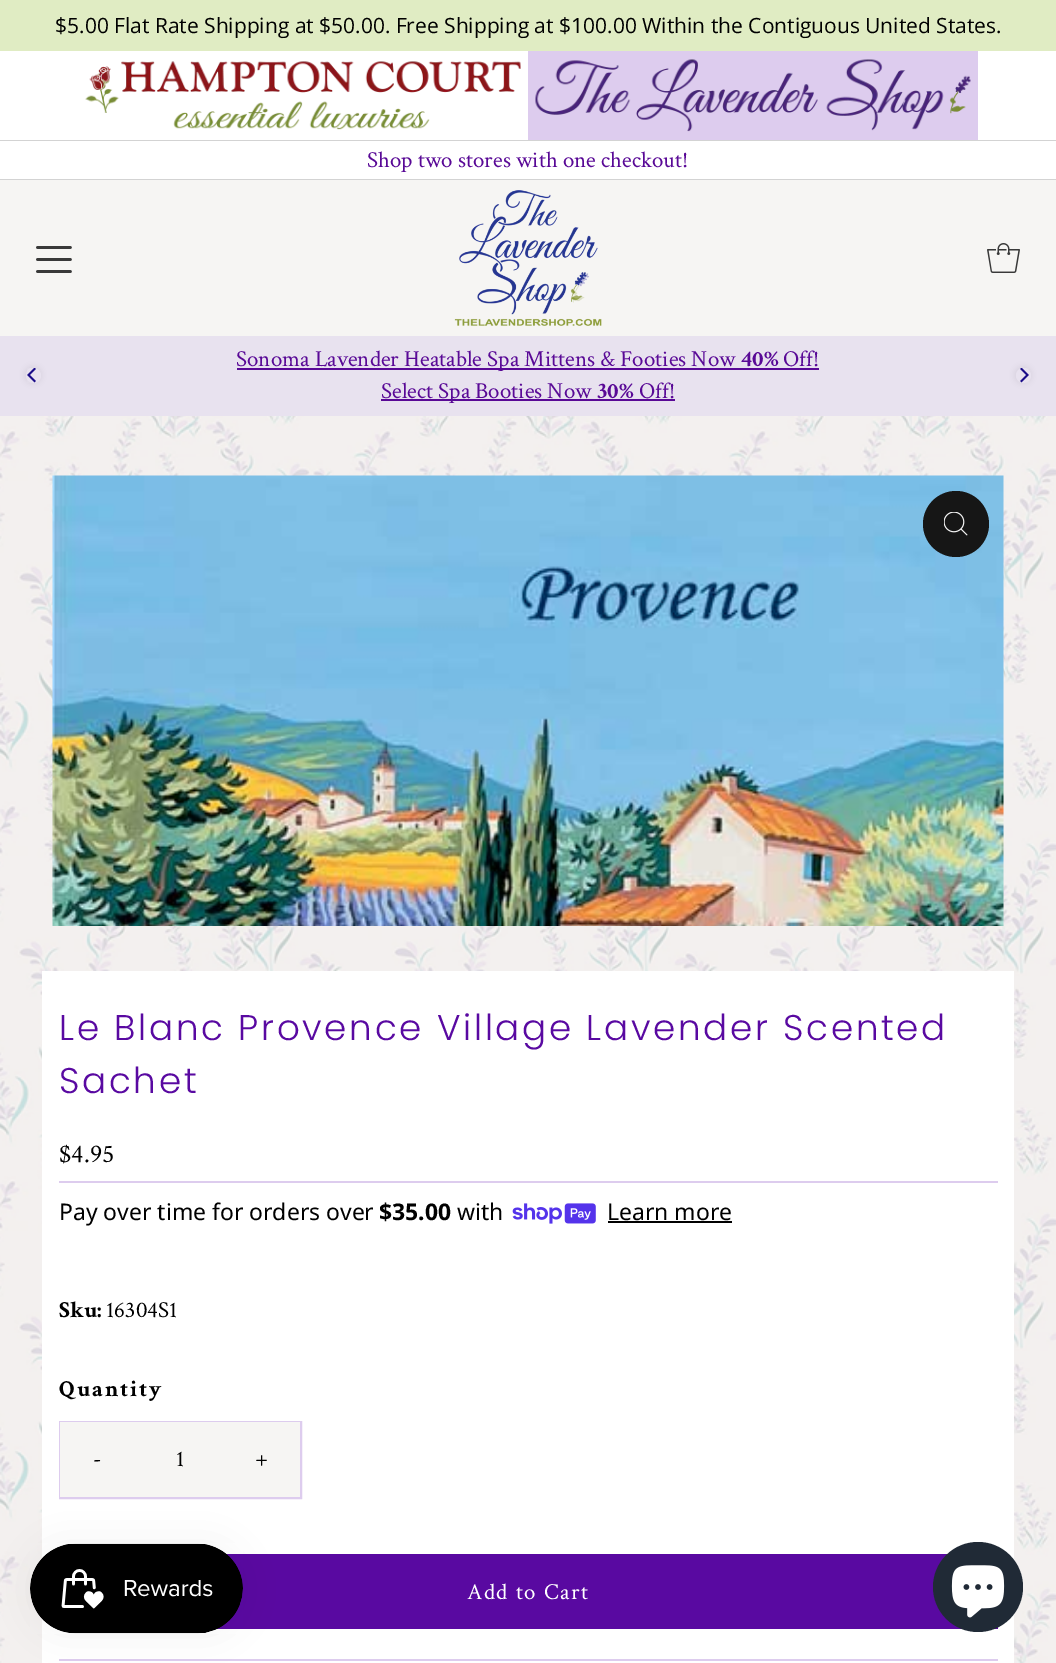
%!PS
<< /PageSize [1056 1663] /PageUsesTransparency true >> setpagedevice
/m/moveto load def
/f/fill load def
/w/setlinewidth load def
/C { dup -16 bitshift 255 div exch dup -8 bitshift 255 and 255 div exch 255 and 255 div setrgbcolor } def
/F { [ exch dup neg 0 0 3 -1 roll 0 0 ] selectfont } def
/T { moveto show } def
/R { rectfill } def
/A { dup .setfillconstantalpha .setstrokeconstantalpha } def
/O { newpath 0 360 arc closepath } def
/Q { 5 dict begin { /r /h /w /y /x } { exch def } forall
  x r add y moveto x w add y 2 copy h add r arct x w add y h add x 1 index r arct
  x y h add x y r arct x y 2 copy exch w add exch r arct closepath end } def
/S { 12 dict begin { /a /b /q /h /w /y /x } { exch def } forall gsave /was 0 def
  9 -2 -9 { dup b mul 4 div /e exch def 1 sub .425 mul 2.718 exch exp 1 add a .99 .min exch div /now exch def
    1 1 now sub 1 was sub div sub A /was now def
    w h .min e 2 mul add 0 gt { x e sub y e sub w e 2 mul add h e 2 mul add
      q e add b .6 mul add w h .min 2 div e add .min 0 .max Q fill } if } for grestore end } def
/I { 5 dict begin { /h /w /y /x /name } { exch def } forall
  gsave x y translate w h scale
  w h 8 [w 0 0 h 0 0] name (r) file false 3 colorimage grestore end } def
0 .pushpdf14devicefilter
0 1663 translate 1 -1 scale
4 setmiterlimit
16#F6F5F3 C
0 0 1056 1663 R
(1.rgb) 0 416 1056 1247 I
16#E0ECC3 C
0 0 1056 51 R
/OpenSans-Regular 21 F
16#000000 C
($5.00 Flat Rate Shipping at $50.00. Free Shipping at $100.00 Within the Contiguous United States.) 55 33 T
16#FFFFFF C
0 51 1056 89 R
16#D3D3D3 C
0 140 1056 1 R
(2.rgb) 85 61 436 69 I
16#DDCCEE C
528 51 450 89 R
(3.rgb) 535 59 436 73 I
16#FFFFFF C
0 141 1056 38 R
16#D3D3D3 C
0 179 1056 1 R
/CrimsonText-Regular 22.95 F
16#590996 C
(Shop two stores with one checkout!) 367 167 T
(4.rgb) 36 246 36 27 I
(5.rgb) 454 190 148 136 I
(6.rgb) 987 243 33 30 I
16#E8E2EF C
0 336 1056 80 R
16#000000 C
24 366 18 18 9 3 .05 S
16#E8E2EF C
33.5 375.5 7.5 O f
(7.rgb) 27 368 9 15 I
16#590996 C
237 368 582 2 R
(Sonoma Lavender Heatable Spa Mittens & Footies Now) 236 366 T
/CrimsonText-Bold 22.95 F
(40%) 741 366 T
/CrimsonText-Regular 22.95 F
(Off!) 783 366 T
381 399 294 2 R
(Select Spa Booties Now) 381 398 T
/CrimsonText-Bold 22.95 F
(30%) 597 398 T
/CrimsonText-Regular 22.95 F
(Off!) 639 398 T
16#000000 C
1014 366 18 18 9 3 .05 S
16#E8E2EF C
1023.5 375.5 7.5 O f
(8.rgb) 1020 368 9 15 I
(9.rgb) 52 475 952 451 I
16#161616 C
956 524 33 O f
(10.rgb) 944 512 24 24 I
16#FFFFFF C
42 971 972 692 R
/Poppins-Light 35.7 F
16#5909A1 C
59 1040 m 2.7 0 (Le Blanc Provence Village Lavender Scented) ashow
59 1093 m 2.7 0 (Sachet) ashow
16#DDCCEE C
59 1181 939 2 R
/CrimsonText-Regular 26 F
16#000000 C
($4.95) 59 1162 T
/NotoSans-Regular 22.95 F
(Pay over time for orders over) 59 1220 T
/NotoSans-Bold 22.95 F
($35.00) 379 1220 T
/NotoSans-Regular 22.95 F
(with) 457 1220 T
(11.rgb) 512 1203 84 21 I
(Learn more) 607 1220 T
608 1221 124 2 R
/CrimsonText-Bold 22.95 F
(Sku:) 59 1317 T
/CrimsonText-Regular 22.95 F
(16304S1) 106 1317 T
/CrimsonText-Bold 22.95 F
59 1396 m 1.75 0 (Quantity) ashow
16#DDCCEE C
2 w
60 1422 241 76 rectstroke
16#F6F5F3 C
60 1422 240 75 R
/CrimsonText-Regular 22.95 F
16#000000 C
93 1466 m 1.5 0 (-) ashow
(1) 176 1466 T
255 1466 m 1.5 0 (+) ashow
16#DDCCEE C
59 1659 939 2 R
16#5909A1 C
217 1554 781 75 R
16#FFFFFF C
467 1599 m 1.5 0 (Add to Cart) ashow
16#000000 C
30 1544 213 90 45 19 .05 S
(12.rgb) 30 1543 213 91 I
16#202A36 C
978 1587 45 O f
(13.rgb) 951 1565 54 53 I
.poppdf14devicefilter showpage
